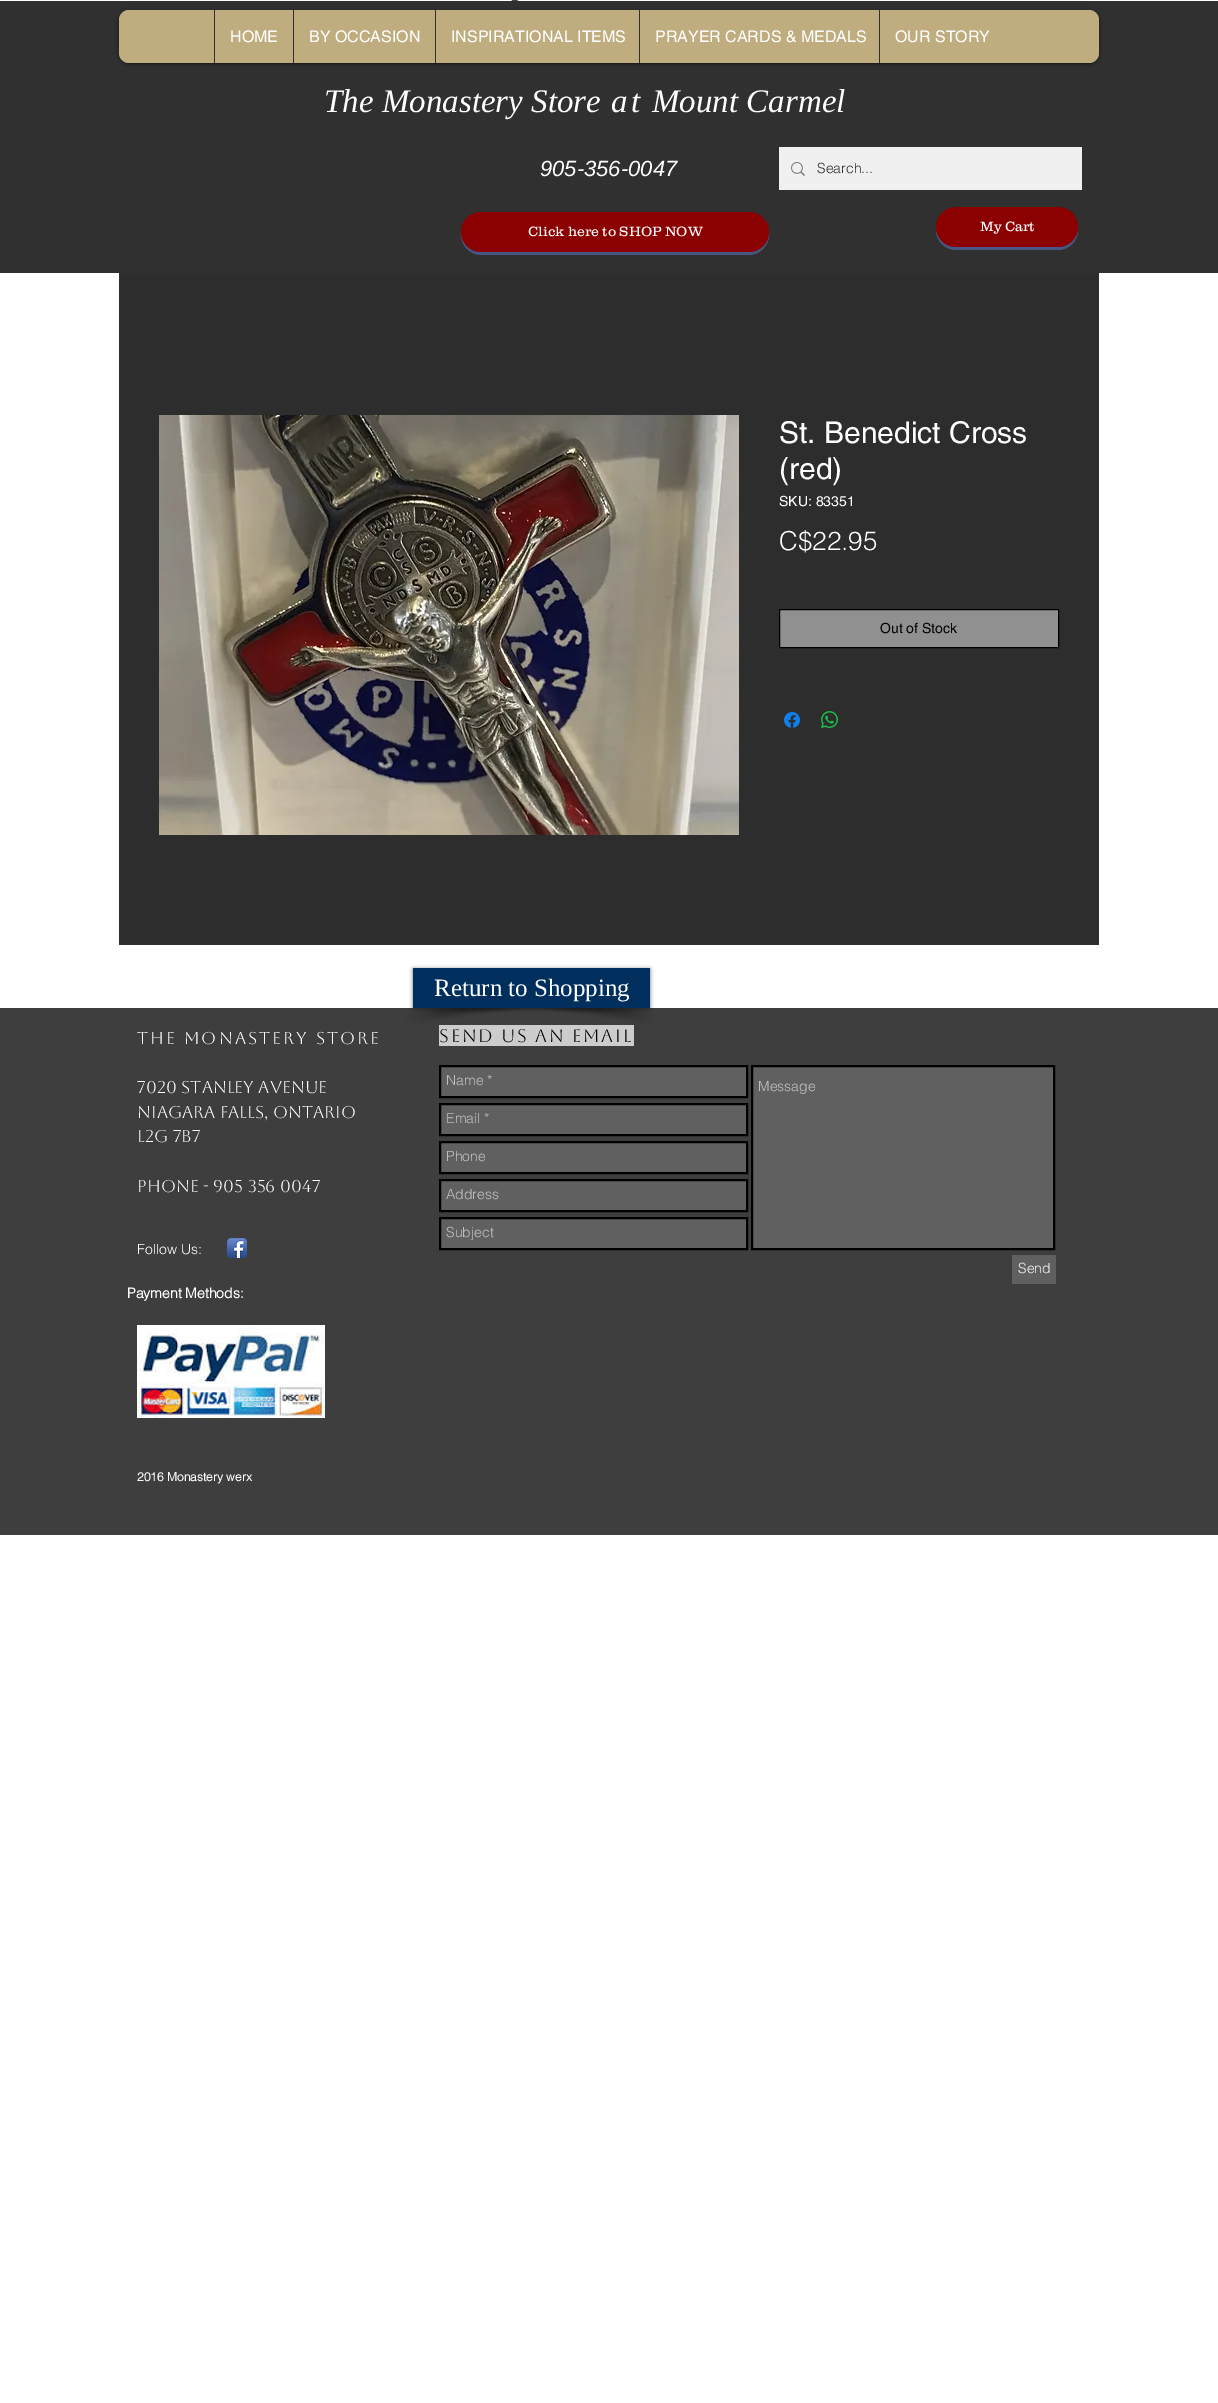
%!PS
<< /PageSize [1218 2403] /PageUsesTransparency true >> setpagedevice
/m/moveto load def
/l/rlineto load def
/c/rcurveto load def
/z/closepath load def
/f/fill load def
/s/stroke load def
/q/gsave load def
/Q_/grestore load def
/w/setlinewidth load def
/C { dup -16 bitshift 255 div exch dup -8 bitshift 255 and 255 div exch 255 and 255 div setrgbcolor } def
/F { [ exch dup neg 0 0 3 -1 roll 0 0 ] selectfont } def
/T { moveto show } def
/R { rectfill } def
/A { dup .setfillconstantalpha .setstrokeconstantalpha } def
/Q { 5 dict begin { /r /h /w /y /x } { exch def } forall
  x r add y moveto x w add y 2 copy h add r arct x w add y h add x 1 index r arct
  x y h add x y r arct x y 2 copy exch w add exch r arct closepath end } def
/S { 12 dict begin { /a /b /q /h /w /y /x } { exch def } forall gsave /was 0 def
  9 -2 -9 { dup b mul 4 div /e exch def 1 sub .425 mul 2.718 exch exp 1 add a .99 .min exch div /now exch def
    1 1 now sub 1 was sub div sub A /was now def
    w h .min e 2 mul add 0 gt { x e sub y e sub w e 2 mul add h e 2 mul add
      q e add b .6 mul add w h .min 2 div e add .min 0 .max Q fill } if } for grestore end } def
/I { 5 dict begin { /h /w /y /x /name } { exch def } forall
  gsave x y translate w h scale
  w h 8 [w 0 0 h 0 0] name (r) file false 3 colorimage grestore end } def
0 .pushpdf14devicefilter
0 2403 translate 1 -1 scale
4 setmiterlimit
16#FFFFFF C
0 0 1218 2403 R
/LiberationSans-Regular 10 F
16#000000 C
(_) 512 -1 T
16#303030 C
0 1 1218 272 R
16#000000 C
119 11 980 53 10 2 .6 S
16#BFAD7F C
119 10 980 53 10 Q f
16#303030 C
214 10 1 53 R
/helvetica-Regular 16 F
16#FFFFFF C
(HOME) 230 42 T
16#303030 C
293 10 1 53 R
16#FFFFFF C
(BY OCCASION) 309 42 T
16#303030 C
435 10 1 53 R
16#FFFFFF C
(INSPIRATIONAL ITEMS) 451 42 T
16#303030 C
639 10 1 53 R
16#FFFFFF C
(PRAYER CARDS & MEDALS) 655 42 T
16#303030 C
879 10 1 53 R
16#FFFFFF C
(OUR STORY) 895 42 T
/LiberationSerif-Italic 33 F
(The Monastery Store) 324 112 T
611 112 m 3 0 (at) ashow
(Mount Carmel) 652 112 T
/LiberationSans-Italic 22 F
(905-356-0047) 540 176 T
16#F0F0F0 C
779 147 303 43 R
(1.rgb) 791 162 14 14 I
/helvetica-Light 14 F
16#303030 C
(Search...) 817 173 T
16#475682 C
461 233 m -1 12 9 22 20 22 c 268 0 l 11 0 21 -10 20 -22 c -1 11 -9 19 -20 19 c -268 0 l -11 0 -19 -8 -20 -19 c z f
16#8B0000 C
461 212 308 40 20 Q f
/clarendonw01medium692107-Light 14 F
16#FFFFFF C
(Click here to SHOP NOW) 528 236 T
16#475682 C
936 228 m 0 2 l 0 11 9 20 20 20 c 102 0 l 11 0 20 -9 20 -20 c 0 -2 l -1 11 -9 19 -20 19 c -102 0 l -11 0 -19 -8 -20 -19 c z f
16#8B0000 C
936 207 142 40 20 Q f
16#FFFFFF C
(My Cart) 980 231 T
16#2D2D2D C
119 273 980 672 R
(2.rgb) 159 415 580 420 I
/helvetica-Regular 30 F
16#FFFFFF C
(St. Benedict Cross) 779 443 T
(\(red\)) 779 479 T
/helvetica-Regular 14 F
(SKU: 83351) 779 506 T
/helvetica-Light 26 F
(C$22.95) 779 550 T
16#909090 C
779.5 609.5 m 279 0 l 0 38 l -279 0 l z q f Q_
16#000000 C
s
/helvetica-Regular 14 F
(Out of Stock) 880 633 T
(3.rgb) 784 712 16 16 I
(4.rgb) 821 711 17 17 I
(5.rgb) 404 1008 154 18 I
(6.rgb) 513 1008 146 18 I
413 969 237 40 0 2 .6 S
16#002E5D C
413 968 237 40 R
/LiberationSerif-Regular 25 F
16#FFFFFF C
(Return to Shopping) 434 996 T
0.88 A
16#232323 C
0 1008 1218 527 R
/Aboreto-Regular 17 F
1 A
16#FFFFFF C
137 1044 m 2.1 0 (The Monastery Store) ashow
(7020 Stanley Avenue) 137 1093 T
(Niagara Falls, Ontario) 137 1118 T
(L2G 7B7) 137 1142 T
(Phone - 905 356 0047) 137 1192 T
16#CCCCCC C
439 1025 195 21 R
/Aboreto-Regular 18 F
16#000000 C
439 1042 m 1.75 0 (Send us an Email) ashow
/helvetica-Light 14 F
16#FFFFFF C
(Follow Us:) 137 1254 T
(7.rgb) 227 1238 20 20 I
16#606060 C
440 1066 m 307 0 l 0 31 l -307 0 l z q f Q_
16#000000 C
2 w
s
16#C0C0C0 C
(Name *) 446 1085 T
16#606060 C
752 1066 m 302 0 l 0 183 l -302 0 l z q f Q_
16#000000 C
s
16#C0C0C0 C
(Message) 758 1091 T
16#606060 C
440 1104 m 307 0 l 0 31 l -307 0 l z q f Q_
16#000000 C
s
16#C0C0C0 C
(Email *) 446 1123 T
16#606060 C
440 1142 m 307 0 l 0 31 l -307 0 l z q f Q_
16#000000 C
s
16#C0C0C0 C
(Phone) 446 1161 T
16#606060 C
440 1180 m 307 0 l 0 31 l -307 0 l z q f Q_
16#000000 C
s
16#C0C0C0 C
(Address) 446 1199 T
16#606060 C
440 1218 m 307 0 l 0 31 l -307 0 l z q f Q_
16#000000 C
s
16#C0C0C0 C
(Subject) 446 1237 T
16#606060 C
1012 1255 44 29 R
16#F0F0F0 C
(Send) 1018 1273 T
/helvetica-Bold 14 F
16#FFFFFF C
(Payment Methods:) 127 1298 T
(8.rgb) 137 1325 188 93 I
/helvetica-Bold 12 F
(2016 Monastery werx) 137 1481 T
.poppdf14devicefilter showpage
